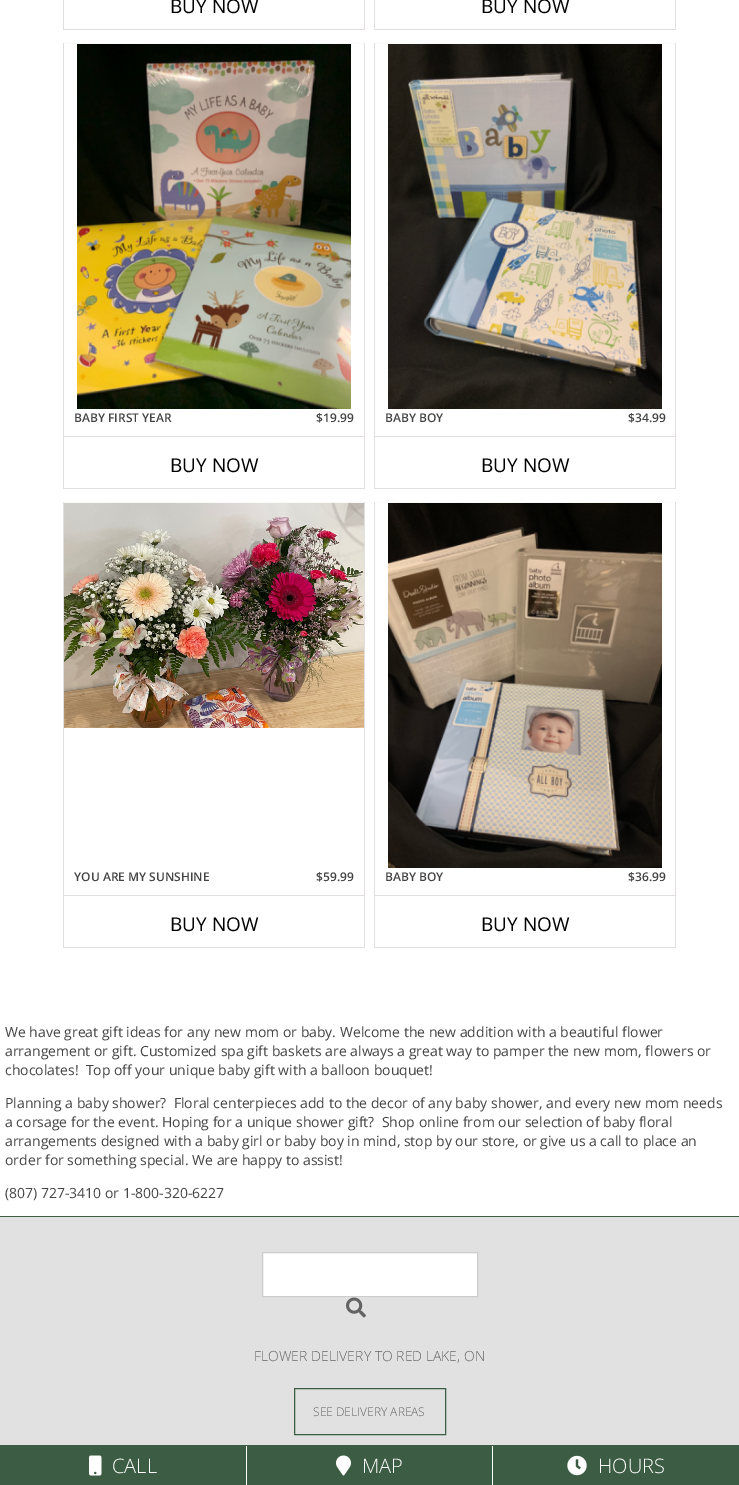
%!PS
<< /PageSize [739 1485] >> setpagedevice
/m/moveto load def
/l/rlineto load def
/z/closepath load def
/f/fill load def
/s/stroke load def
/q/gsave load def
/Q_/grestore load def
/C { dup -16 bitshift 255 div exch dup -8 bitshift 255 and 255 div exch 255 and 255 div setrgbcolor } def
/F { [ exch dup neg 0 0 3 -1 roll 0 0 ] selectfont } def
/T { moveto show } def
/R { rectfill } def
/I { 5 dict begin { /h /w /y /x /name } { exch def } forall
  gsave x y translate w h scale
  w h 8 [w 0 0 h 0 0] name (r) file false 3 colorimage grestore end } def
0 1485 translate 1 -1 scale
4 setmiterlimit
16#FFFFFF C
0 0 739 1485 R
16#E2DEDD C
364 0 1 30 R
63 29 302 1 R
63 0 1 30 R
/OpenSans-Regular 19 F
16#000000 C
(BUY NOW) 170 13 T
16#E2DEDD C
675 0 1 30 R
374 29 302 1 R
374 0 1 30 R
16#000000 C
(BUY NOW) 481 13 T
16#F9F9F9 C
63 43 302 1 R
16#E2DEDD C
364 43 1 446 R
63 488 302 1 R
63 43 1 446 R
(1.rgb) 77 44 274 365 I
/OpenSans-SemiBold 12 F
16#444444 C
(BABY FIRST YEAR) 74 422 T
($19.99) 316 422 T
16#E2DEDD C
64 436 300 1 R
/OpenSans-Regular 19 F
16#000000 C
(BUY NOW) 170 472 T
16#F9F9F9 C
374 43 302 1 R
16#E2DEDD C
675 43 1 446 R
374 488 302 1 R
374 43 1 446 R
(2.rgb) 388 44 274 365 I
/OpenSans-SemiBold 12 F
16#444444 C
(BABY BOY) 385 422 T
($34.99) 628 422 T
16#E2DEDD C
375 436 300 1 R
/OpenSans-Regular 19 F
16#000000 C
(BUY NOW) 481 472 T
16#F9F9F9 C
63 502 302 1 R
16#E2DEDD C
364 502 1 446 R
63 947 302 1 R
63 502 1 446 R
(3.rgb) 64 503 300 225 I
/OpenSans-SemiBold 12 F
16#444444 C
(YOU ARE MY SUNSHINE) 74 881 T
($59.99) 316 881 T
16#E2DEDD C
64 895 300 1 R
/OpenSans-Regular 19 F
16#000000 C
(BUY NOW) 170 931 T
16#F9F9F9 C
374 502 302 1 R
16#E2DEDD C
675 502 1 446 R
374 947 302 1 R
374 502 1 446 R
(4.rgb) 388 503 274 365 I
/OpenSans-SemiBold 12 F
16#444444 C
(BABY BOY) 385 881 T
($36.99) 628 881 T
16#E2DEDD C
375 895 300 1 R
/OpenSans-Regular 19 F
16#000000 C
(BUY NOW) 481 931 T
/OpenSans-Regular 14 F
16#444444 C
(We have great gift ideas for any new mom or baby. Welcome the new addition with a beautiful flower) 5 1037 T
(arrangement or gift. Customized spa gift baskets are always a great way to pamper the new mom, flowers or) 5 1056 T
(chocolates!  Top off your unique baby gift with a balloon bouquet!) 5 1075 T
(Planning a baby shower?  Floral centerpieces add to the decor of any baby shower, and every new mom needs) 5 1108 T
(a corsage for the event. Hoping for a unique shower gift?  Shop online from our selection of baby floral) 5 1127 T
(arrangements designed with a baby girl or baby boy in mind, stop by our store, or give us a call to place an) 5 1146 T
(order for something special. We are happy to assist!) 5 1165 T
(\(807\) 727-3410 or 1-800-320-6227) 5 1198 T
16#E1E1E1 C
0 1217 739 228 R
16#3C5D43 C
0 1216 739 1 R
0 1445 739 1 R
16#FFFFFF C
262.5 1252.5 m 215 0 l 0 44 l -215 0 l z q f Q_
16#CCCCCC C
s
(5.rgb) 346 1297 20 21 I
/OpenSans-Light 14 F
16#636363 C
(FLOWER DELIVERY TO RED LAKE, ON) 254 1361 T
16#3C5D43 C
294.5 1388.5 151 46 rectstroke
/OpenSans-Light 12 F
16#636363 C
(SEE DELIVERY AREAS) 313 1416 T
16#3C5D43 C
0 1446 246 39 R
(6.rgb) 89 1455 13 21 I
/OpenSans-Light 20 F
16#FFFFFF C
(CALL) 112 1473 T
16#3C5D43 C
247 1446 245 39 R
(7.rgb) 336 1455 15 21 I
16#FFFFFF C
(MAP) 362 1473 T
16#3C5D43 C
493 1446 246 39 R
(8.rgb) 567 1455 20 21 I
16#FFFFFF C
(HOURS) 598 1473 T
showpage
